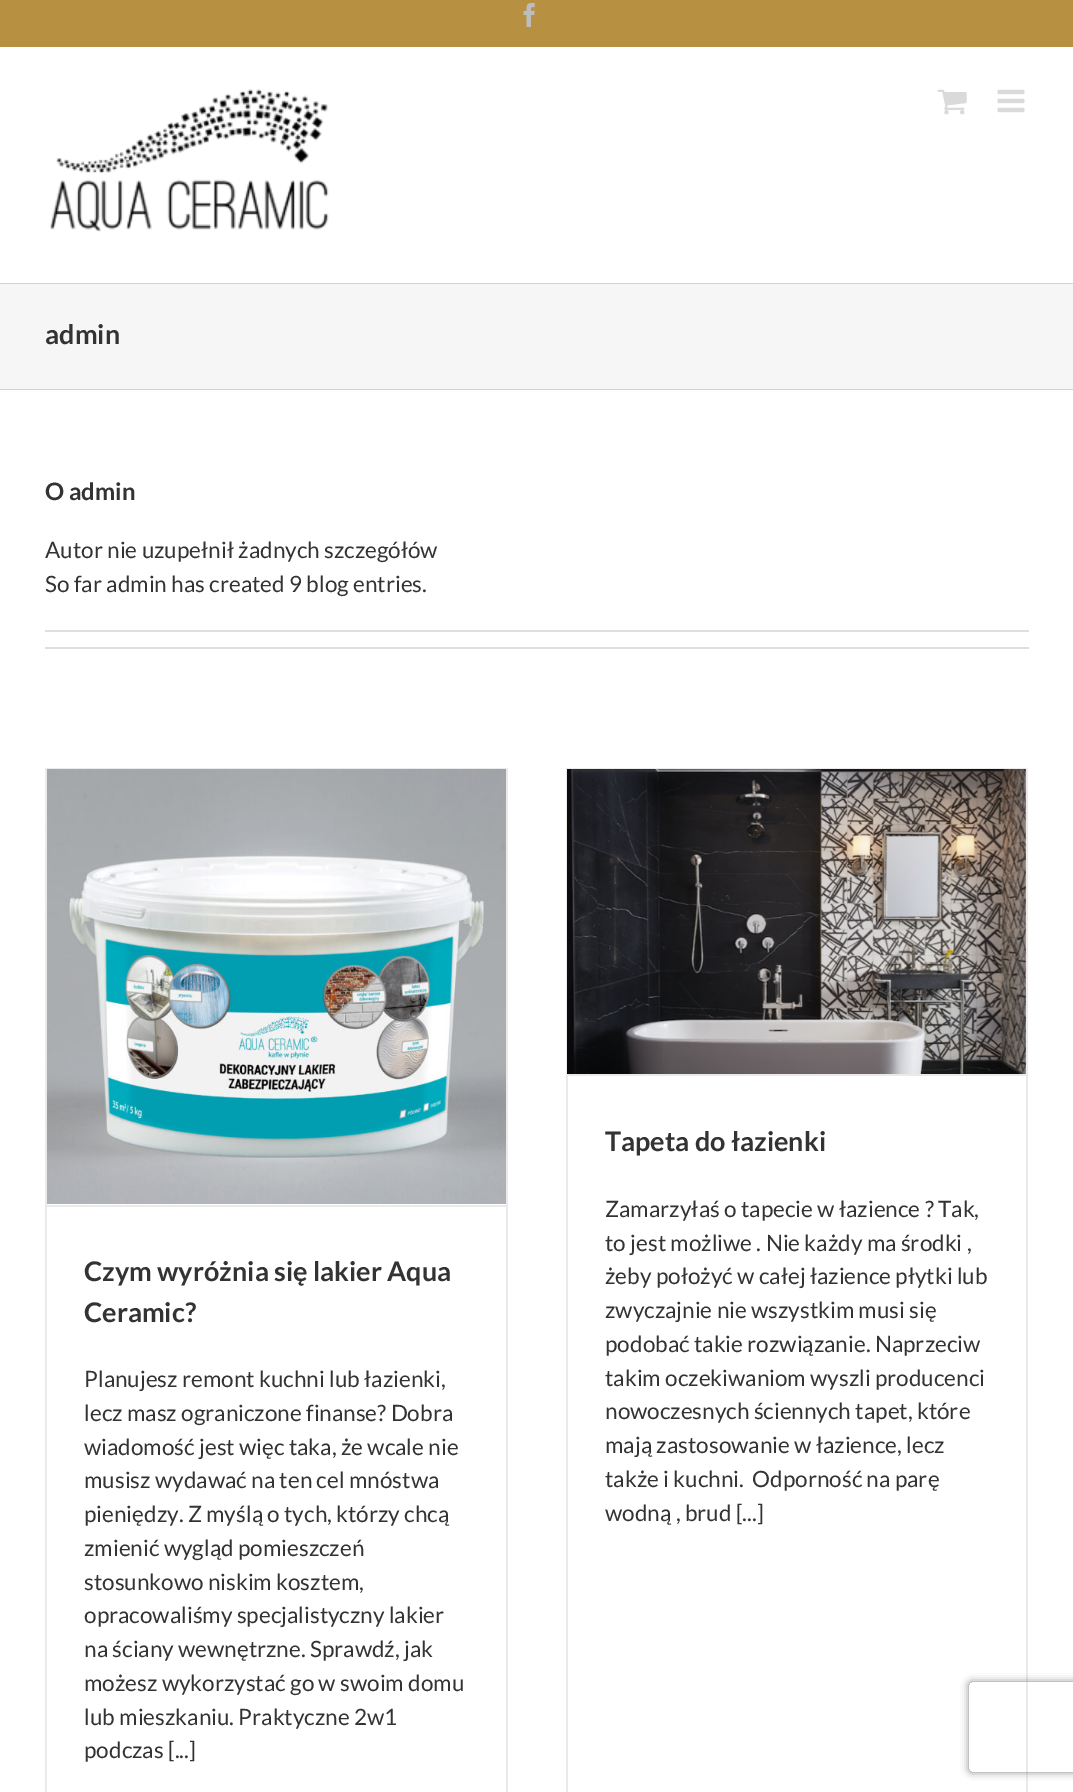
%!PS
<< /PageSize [1073 1792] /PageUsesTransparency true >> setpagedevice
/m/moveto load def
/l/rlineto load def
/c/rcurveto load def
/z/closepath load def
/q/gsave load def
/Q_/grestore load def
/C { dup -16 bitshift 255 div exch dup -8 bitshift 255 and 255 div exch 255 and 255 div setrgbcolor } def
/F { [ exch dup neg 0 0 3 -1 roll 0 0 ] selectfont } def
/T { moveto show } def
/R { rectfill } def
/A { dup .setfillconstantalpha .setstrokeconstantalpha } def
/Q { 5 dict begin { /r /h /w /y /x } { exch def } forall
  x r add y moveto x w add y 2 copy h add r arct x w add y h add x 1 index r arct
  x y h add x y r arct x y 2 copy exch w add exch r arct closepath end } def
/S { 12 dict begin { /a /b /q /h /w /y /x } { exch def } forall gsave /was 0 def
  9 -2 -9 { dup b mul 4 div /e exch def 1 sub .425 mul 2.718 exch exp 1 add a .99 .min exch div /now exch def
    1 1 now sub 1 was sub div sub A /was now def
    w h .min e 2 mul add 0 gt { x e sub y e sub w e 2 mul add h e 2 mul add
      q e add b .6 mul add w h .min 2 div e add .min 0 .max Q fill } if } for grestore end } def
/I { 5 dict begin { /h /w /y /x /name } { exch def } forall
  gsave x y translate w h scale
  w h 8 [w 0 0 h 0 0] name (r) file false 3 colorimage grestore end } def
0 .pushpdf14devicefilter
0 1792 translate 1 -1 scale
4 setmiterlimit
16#FFFFFF C
0 0 1073 1792 R
16#B79041 C
0 0 1073 47 R
(1.rgb) 523 3 12 24 I
(2.rgb) 49 89 280 143 I
(3.rgb) 937 89 30 26 I
(4.rgb) 997 89 28 24 I
16#F6F6F6 C
0 284 1073 105 R
16#D2D3D4 C
0 283 1073 1 R
0 389 1073 1 R
/Lato-Bold 27 F
16#333333 C
(admin) 45 344 T
/Lato-Bold 24 F
(O admin) 45 500 T
/Lato-Regular 22.5 F
(Autor nie uzupełnił żadnych szczegółów) 45 558 T
(So far admin has created 9 blog entries.) 45 592 T
16#E0DEDE C
45 630 984 2 R
45 647 984 2 R
16#EBEAEA C
45 768 462 1 R
506 768 2 1024 R
45 768 2 1024 R
47 1205 459 2 R
(5.rgb) 47 769 459 435 I
/Lato-Bold 27 F
16#333333 C
(Czym wyróżnia się lakier Aqua) 84 1281 T
(Ceramic?) 84 1322 T
/Lato-Regular 22.5 F
(Planujesz remont kuchni lub łazienki,) 84 1387 T
(lecz masz ograniczone finanse? Dobra) 84 1421 T
(wiadomość jest więc taka, że wcale nie) 84 1455 T
(musisz wydawać na ten cel mnóstwa) 84 1488 T
(pieniędzy. Z myślą o tych, którzy chcą) 84 1522 T
(zmienić wygląd pomieszczeń) 84 1556 T
(stosunkowo niskim kosztem,) 84 1590 T
(opracowaliśmy specjalistyczny lakier) 84 1623 T
(na ściany wewnętrzne. Sprawdź, jak) 84 1657 T
(możesz wykorzystać go w swoim domu) 84 1691 T
(lub mieszkaniu. Praktyczne 2w1) 84 1725 T
(podczas [...]) 84 1758 T
16#EBEAEA C
566 768 462 2 R
1026 768 2 1024 R
566 768 2 1024 R
567 1074 459 2 R
(6.rgb) 567 769 459 305 I
/Lato-Bold 27 F
16#333333 C
(Tapeta do łazienki) 605 1151 T
/Lato-Regular 22.5 F
(Zamarzyłaś o tapecie w łazience ? Tak,) 605 1217 T
(to jest możliwe . Nie każdy ma środki ,) 605 1251 T
(żeby położyć w całej łazience płytki lub) 605 1284 T
(zwyczajnie nie wszystkim musi się) 605 1318 T
(podobać takie rozwiązanie. Naprzeciw) 605 1352 T
(takim oczekiwaniom wyszli producenci) 605 1386 T
(nowoczesnych ściennych tapet, które) 605 1419 T
(mają zastosowanie w łazience, lecz) 605 1453 T
(także i kuchni.  Odporność na parę) 605 1487 T
(wodną , brud [...]) 605 1521 T
q
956 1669 m 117 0 l 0 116 l -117 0 l z 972 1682 m 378 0 l 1.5 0 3 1.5 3 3 c 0 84 l 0 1.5 -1.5 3 -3 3 c -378 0 l -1.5 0 -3 -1.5 -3 -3 c 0 -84 l 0 -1.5 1.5 -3 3 -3 c z eoclip newpath
16#808080 C
969 1682 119 90 3 4 1 S
Q_
.poppdf14devicefilter showpage
